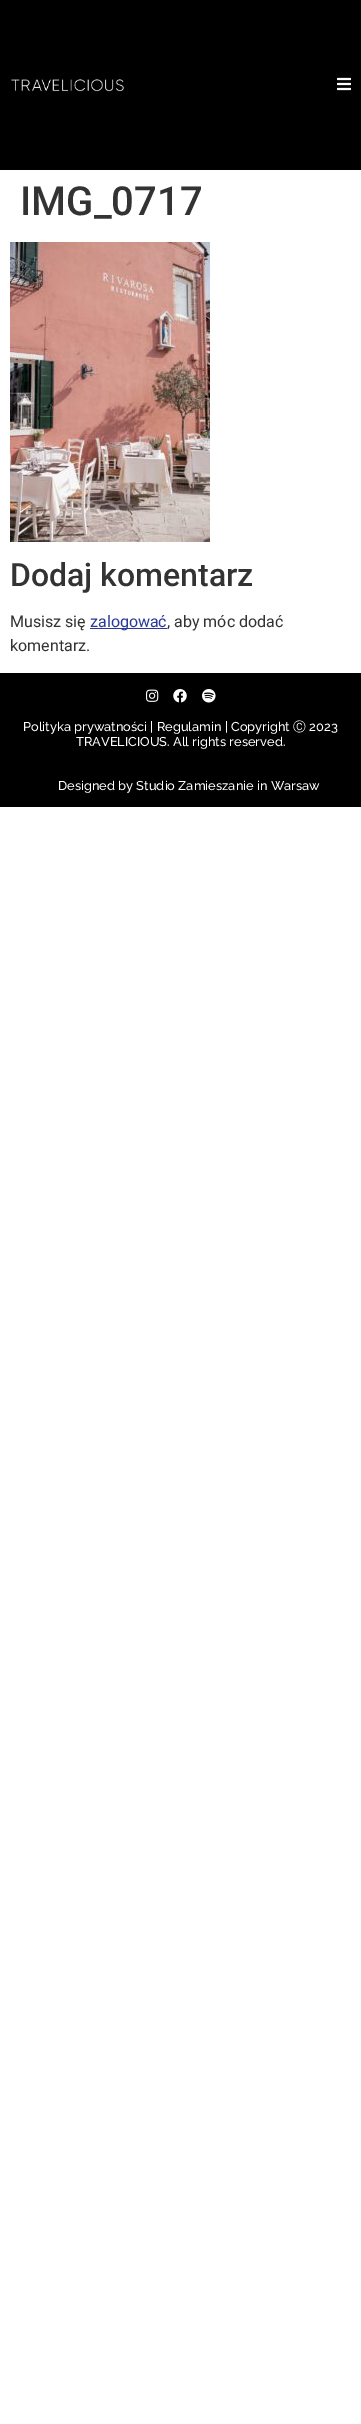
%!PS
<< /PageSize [361 2424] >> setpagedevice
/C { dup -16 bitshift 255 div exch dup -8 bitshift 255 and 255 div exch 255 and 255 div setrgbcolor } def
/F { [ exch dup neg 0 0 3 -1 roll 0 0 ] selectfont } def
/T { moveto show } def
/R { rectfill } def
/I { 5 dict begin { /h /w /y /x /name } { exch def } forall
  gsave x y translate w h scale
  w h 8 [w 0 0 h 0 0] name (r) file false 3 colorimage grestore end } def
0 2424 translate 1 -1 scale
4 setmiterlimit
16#FFFFFF C
0 0 361 2424 R
16#000000 C
0 0 361 170 R
(1.rgb) 11 79 113 13 I
(2.rgb) 337 77 14 14 I
/Roboto-Medium 40 F
16#333333 C
(IMG_0717) 20 215 T
(3.rgb) 10 242 200 300 I
/Roboto-Medium 32 F
(Dodaj komentarz) 10 586 T
/Roboto-Regular 16 F
(Musisz się) 10 627 T
16#293A98 C
90 628 77 1 R
(zalogować) 90 627 T
16#333333 C
(, aby móc dodać) 167 627 T
(komentarz.) 10 651 T
16#000000 C
0 673 361 134 R
(4.rgb) 146 689 13 13 I
(5.rgb) 173 689 14 14 I
(6.rgb) 202 689 14 14 I
/Raleway-Medium 12.8 F
16#FFFFFF C
(Polityka prywatności | Regulamin | Copyright) 23 731 T
/WenQuanYiZenHei-Medium 12.8 F
(Ⓒ) 293 731 T
/Raleway-Medium 12.8 F
(2023) 309 731 T
(TRAVELICIOUS. All rights reserved.) 76 746 T
(Designed by Studio Zamieszanie in Warsaw) 58 790 T
showpage
